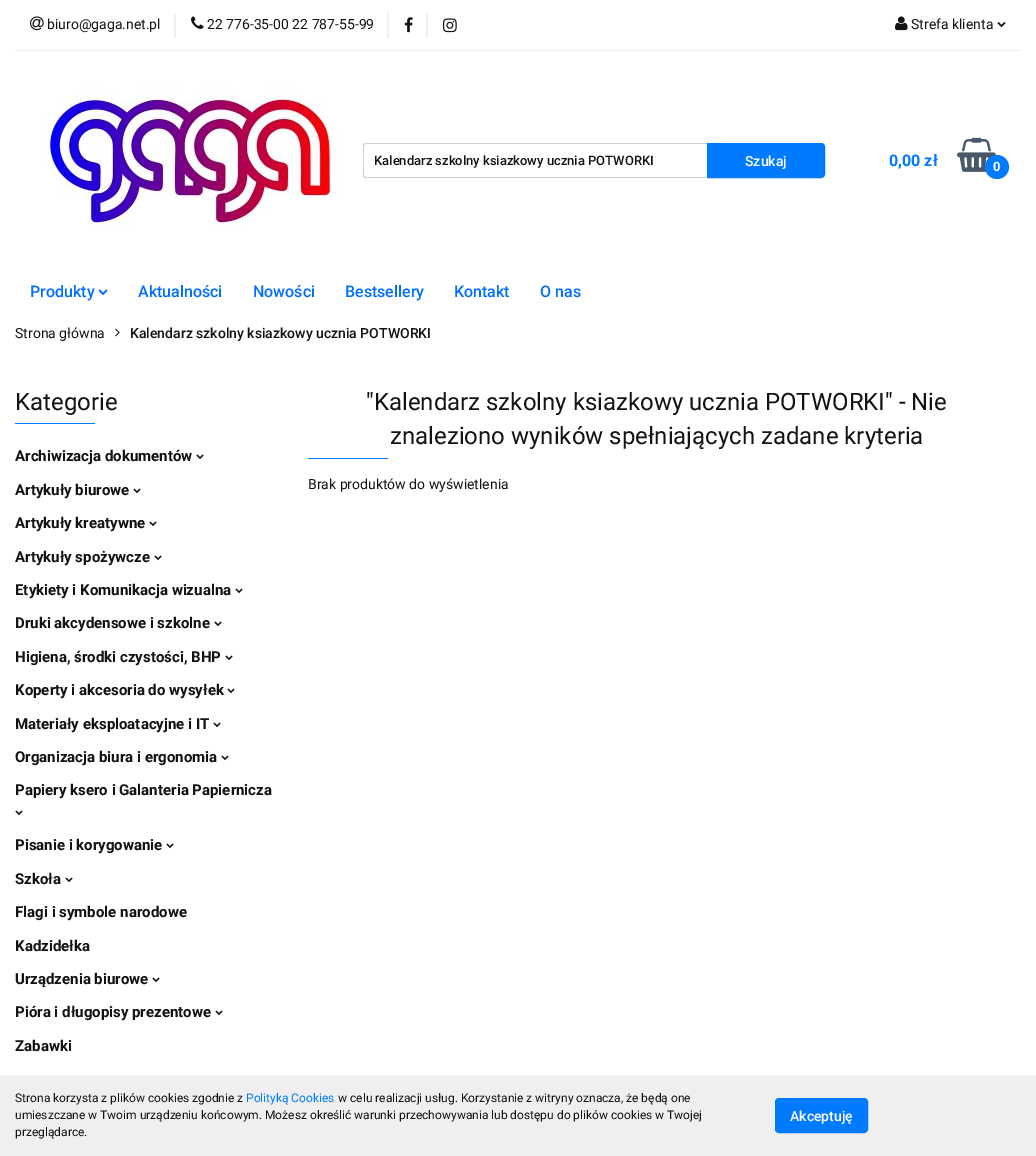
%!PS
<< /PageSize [1036 1156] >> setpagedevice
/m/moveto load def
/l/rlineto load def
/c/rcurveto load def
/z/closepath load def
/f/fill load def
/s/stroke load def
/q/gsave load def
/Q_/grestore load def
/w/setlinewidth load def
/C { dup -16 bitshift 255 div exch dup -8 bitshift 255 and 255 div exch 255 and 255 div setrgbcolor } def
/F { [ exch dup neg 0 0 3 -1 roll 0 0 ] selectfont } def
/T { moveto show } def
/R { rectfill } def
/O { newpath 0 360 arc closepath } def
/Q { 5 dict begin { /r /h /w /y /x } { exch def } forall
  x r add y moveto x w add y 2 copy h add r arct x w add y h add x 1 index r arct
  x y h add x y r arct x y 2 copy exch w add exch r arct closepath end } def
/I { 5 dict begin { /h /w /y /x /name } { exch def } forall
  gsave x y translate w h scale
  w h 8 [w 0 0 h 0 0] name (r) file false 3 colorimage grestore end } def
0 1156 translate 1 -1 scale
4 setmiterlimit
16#FFFFFF C
0 0 1036 1156 R
16#EFEFEF C
15 50 1006 1 R
(1.rgb) 30 16 14 15 I
/Roboto-Regular 14 F
16#131313 C
(biuro@gaga.net.pl) 47 29 T
16#EFEFEF C
174 13 2 25 R
(2.rgb) 191 16 13 13 I
16#131313 C
(22 776-35-00 22 787-55-99) 207 29 T
16#EFEFEF C
387 13 2 25 R
(3.rgb) 404 17 9 16 I
426 13 2 25 R
(4.rgb) 443 18 14 15 I
(5.rgb) 895 16 13 15 I
16#131313 C
(Strefa klienta) 911 29 T
(6.rgb) 997 22 9 6 I
(7.rgb) 40 86 300 144 I
16#D0D0D0 C
366 143 m 341 0 l 0 35 l -341 0 l -2 0 -3 -1 -3 -3 c 0 -29 l 0 -2 1 -3 3 -3 c z 366 144 m 341 0 l 0 33 l -341 0 l -1 0 -2 -1 -2 -2 c 0 -29 l 0 -1 1 -2 2 -2 c z eofill
/Roboto-Medium 13 F
16#131313 C
(Kalendarz szkolny ksiazkowy ucznia POTWORKI) 374 165 T
16#007BFF C
708.5 144.5 m 112.5 0 l 1.5 0 2.5 1 2.5 2.5 c 0 27 l 0 1.5 -1 2.5 -2.5 2.5 c -112.5 0 l z q f Q_
3 w
s
/Roboto-Medium 14 F
16#FFFFFF C
(Szukaj) 745 166 T
/Roboto-Bold 16 F
16#007BFF C
(0,00 zł) 889 166 T
(8.rgb) 957 137 39 35 I
997 167 12 O f
/Roboto-Bold 13 F
16#FFFFFF C
(0) 993 171 T
/Roboto-Medium 16 F
16#006FFF C
(Produkty) 30 297 T
(9.rgb) 98 289 10 7 I
(Aktualności) 138 297 T
(Nowości) 253 297 T
(Bestsellery) 345 297 T
(Kontakt) 454 297 T
(O nas) 540 297 T
/Roboto-Regular 14 F
16#131313 C
(Strona główna) 15 338 T
(10.rgb) 115 328 5 9 I
/Roboto-Medium 14 F
(Kalendarz szkolny ksiazkowy ucznia POTWORKI) 130 338 T
/Roboto-Regular 24 F
(Kategorie) 15 410 T
16#007BFF C
15 423 80 1 R
/Roboto-Bold 15 F
16#131313 C
(Archiwizacja dokumentów) 15 461 T
(11.rgb) 196 454 8 6 I
(Artykuły biurowe) 15 495 T
(11.rgb) 133 488 8 6 I
(Artykuły kreatywne) 15 528 T
(11.rgb) 149 521 8 6 I
(Artykuły spożywcze) 15 562 T
(11.rgb) 154 555 8 6 I
(Etykiety i Komunikacja wizualna) 15 595 T
(11.rgb) 235 588 8 6 I
(Druki akcydensowe i szkolne) 15 628 T
(11.rgb) 214 621 8 6 I
(Higiena, środki czystości, BHP) 15 662 T
(11.rgb) 225 655 8 6 I
(Koperty i akcesoria do wysyłek) 15 695 T
(11.rgb) 227 688 8 6 I
(Materiały eksploatacyjne i IT) 15 729 T
(11.rgb) 213 722 8 6 I
(Organizacja biura i ergonomia) 15 762 T
(11.rgb) 221 755 8 6 I
(Papiery ksero i Galanteria Papiernicza) 15 795 T
(11.rgb) 15 810 8 6 I
(Pisanie i korygowanie) 15 850 T
(11.rgb) 166 843 8 6 I
(Szkoła) 15 884 T
(11.rgb) 65 877 8 6 I
(Flagi i symbole narodowe) 15 917 T
(Kadzidełka) 15 951 T
(Urządzenia biurowe) 15 984 T
(11.rgb) 152 977 8 6 I
(Pióra i długopisy prezentowe) 15 1017 T
(11.rgb) 215 1010 8 6 I
(Zabawki) 15 1051 T
/Roboto-Regular 24 F
("Kalendarz szkolny ksiazkowy ucznia POTWORKI" - Nie) 366 410 T
(znaleziono wyników spełniających zadane kryteria) 390 444 T
16#007BFF C
308 458 80 1 R
/Roboto-Regular 14 F
16#131313 C
(Brak produktów do wyświetlenia) 308 489 T
16#EFEFEF C
0 1075 1036 81 R
/Roboto-Regular 12 F
16#131313 C
(Strona korzysta z plików cookies zgodnie z) 15 1102 T
16#007BFF C
(Polityką Cookies) 246 1102 T
16#131313 C
(w celu realizacji usług. Korzystanie z witryny oznacza, że będą one) 338 1102 T
(umieszczane w Twoim urządzeniu końcowym. Możesz określić warunki przechowywania lub dostępu do plików cookies w Twojej) 15 1119 T
(przeglądarce.) 15 1136 T
16#007BFF C
776.5 1099.5 90 32 2.5 Q q f Q_
s
/Roboto-Medium 14 F
16#FFFFFF C
(Akceptuję) 790 1121 T
showpage
